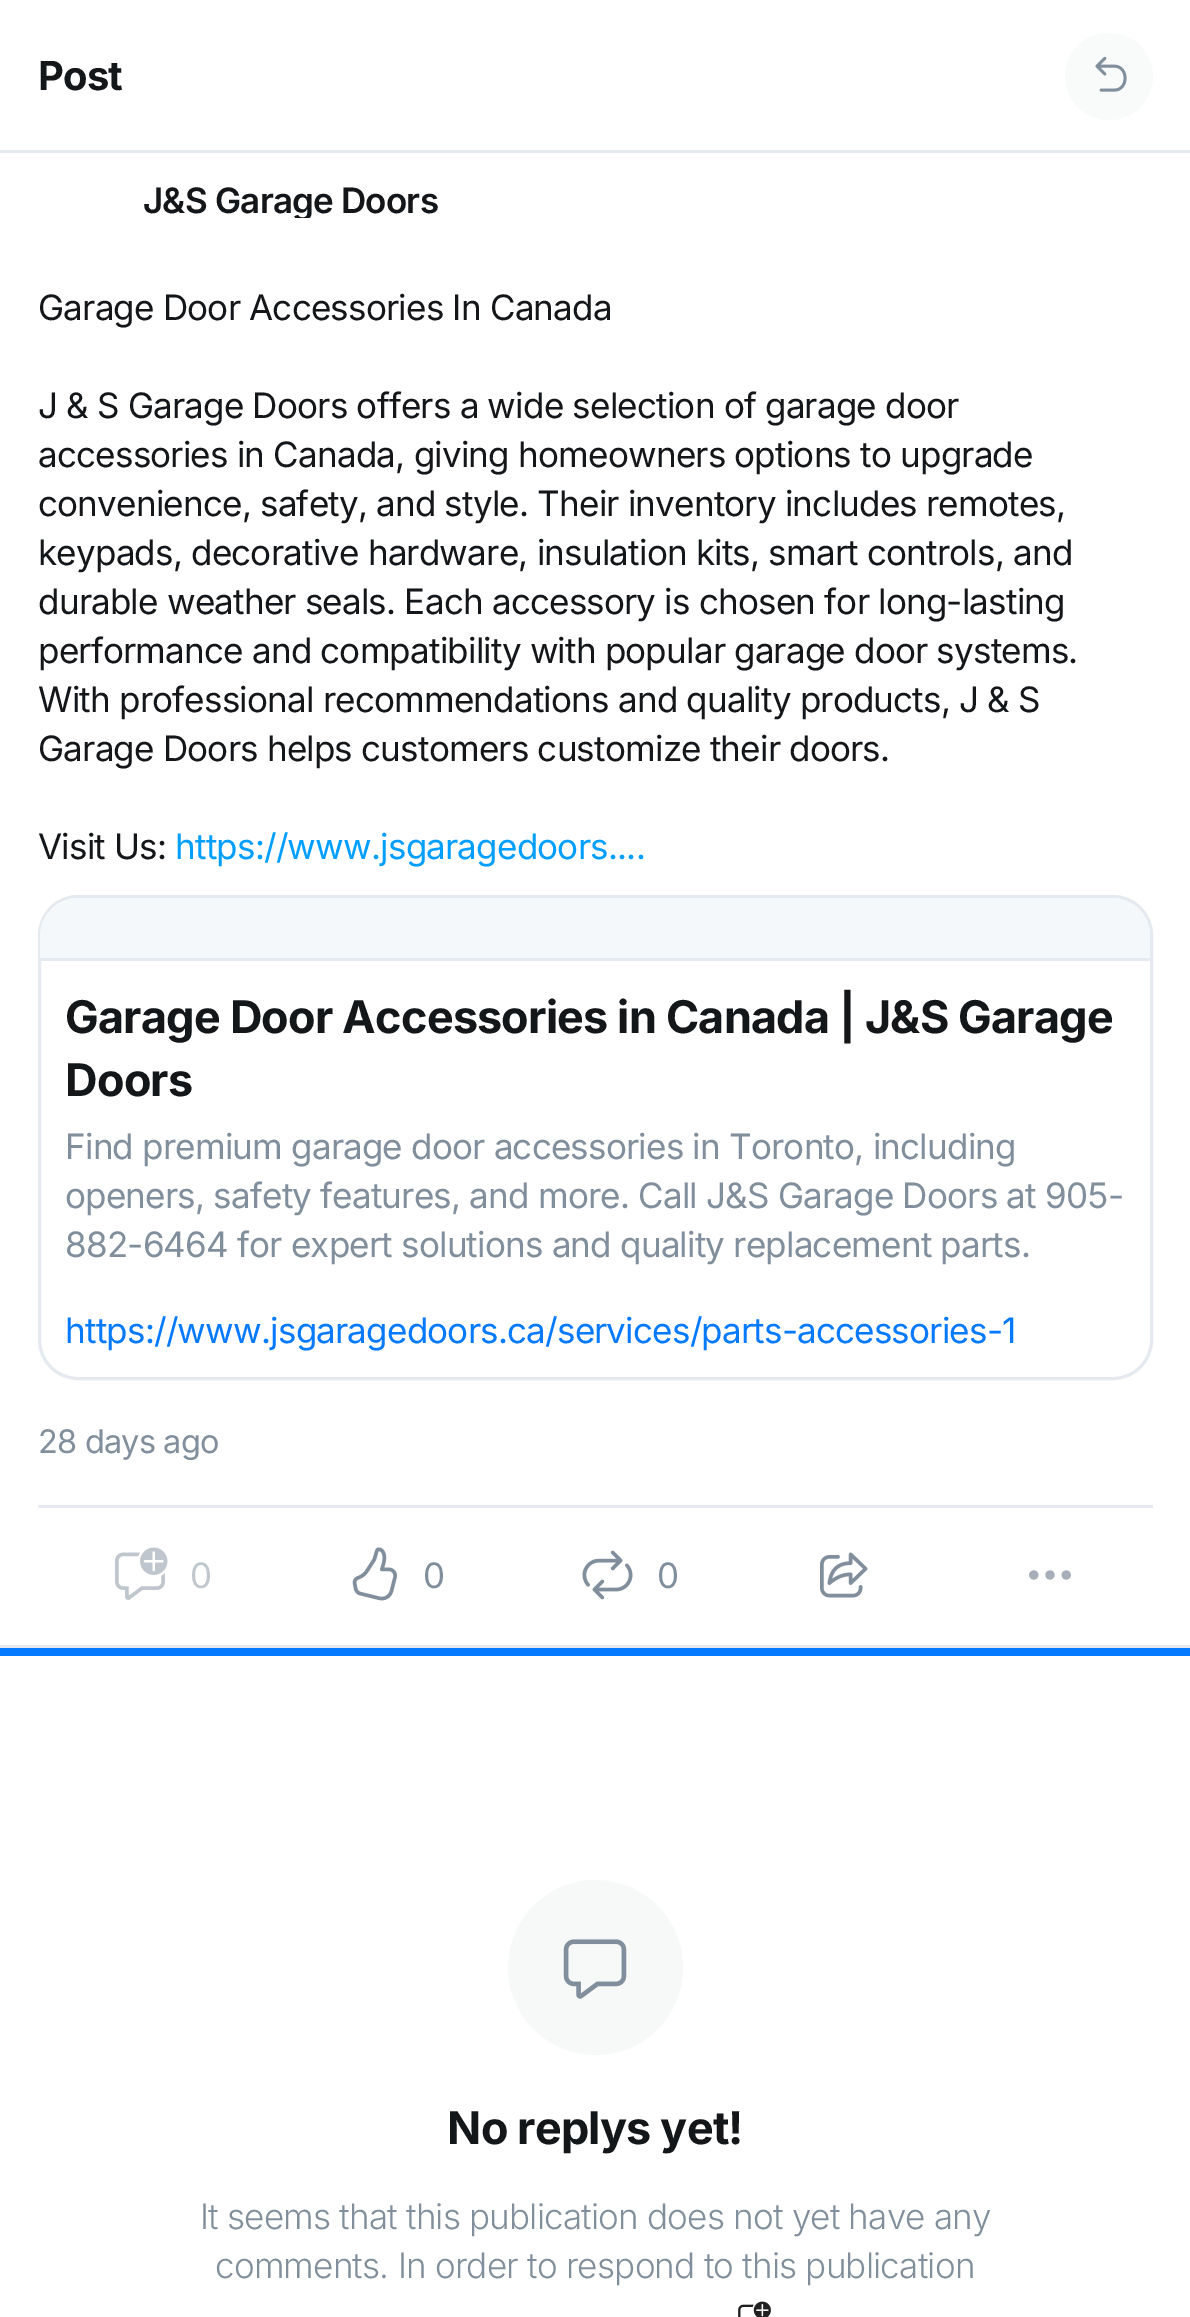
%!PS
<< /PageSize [1190 2317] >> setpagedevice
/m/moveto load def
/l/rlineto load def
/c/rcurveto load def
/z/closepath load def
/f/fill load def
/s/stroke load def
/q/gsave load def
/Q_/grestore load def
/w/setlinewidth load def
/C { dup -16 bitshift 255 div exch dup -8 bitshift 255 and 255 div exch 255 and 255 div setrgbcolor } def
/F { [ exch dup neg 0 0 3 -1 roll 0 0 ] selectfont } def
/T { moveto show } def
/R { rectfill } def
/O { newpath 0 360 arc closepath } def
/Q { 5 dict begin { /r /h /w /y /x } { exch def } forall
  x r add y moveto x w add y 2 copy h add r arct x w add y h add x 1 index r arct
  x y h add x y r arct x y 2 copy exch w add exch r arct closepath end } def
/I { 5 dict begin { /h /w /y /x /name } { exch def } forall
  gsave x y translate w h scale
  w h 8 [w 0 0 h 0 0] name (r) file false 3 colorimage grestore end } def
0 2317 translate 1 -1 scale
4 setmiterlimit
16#FFFFFF C
0 0 1190 2317 R
16#E4EAEF C
0 150 1190 3 R
/Inter-Bold 40 F
16#14171A C
38 90 m -.8 0 (Post) ashow
16#F9FBFB C
1065 33 88 87 43.5 Q f
(1.rgb) 1095 56 32 36 I
16#067AFF C
0 1648 1190 8 R
16#E4EAEF C
0 1645 1190 3 R
q
143 183 295 35 rectclip
/Inter-SemiBold 35 F
16#14171A C
143 213 m -.8 0 (J&S Garage Doors) ashow
Q_
/Inter-Regular 35 F
16#14171A C
38 320 m -.8 0 (Garage Door Accessories In Canada) ashow
38 418 m -.8 0 (J & S Garage Doors offers a wide selection of garage door) ashow
38 467 m -.8 0 (accessories in Canada, giving homeowners options to upgrade) ashow
38 516 m -.8 0 (convenience, safety, and style. Their inventory includes remotes,) ashow
38 565 m -.8 0 (keypads, decorative hardware, insulation kits, smart controls, and) ashow
38 614 m -.8 0 (durable weather seals. Each accessory is chosen for long-lasting) ashow
38 663 m -.8 0 (performance and compatibility with popular garage door systems.) ashow
38 712 m -.8 0 (With professional recommendations and quality products, J & S) ashow
38 761 m -.8 0 (Garage Doors helps customers customize their doors.) ashow
38 859 m -.8 0 (Visit Us:) ashow
16#009EFF C
175 859 m -.8 0 (https://www.jsgaragedoors....) ashow
16#E4EAEF C
3 w
39.5 896.5 1112 482 38.5 Q s
16#F5F8FA C
78 898 m 1034 0 l 21 0 38 17 38 38 c 0 24 l -1110 0 l 0 -24 l 0 -21 17 -38 38 -38 c z f
16#E4EAEF C
40 958 1110 3 R
/Inter-Bold 45 F
16#14171A C
65 1033 m -.8 0 (Garage Door Accessories in Canada | J&S Garage) ashow
65 1096 m -.8 0 (Doors) ashow
/Inter-Regular 35 F
16#818E9C C
65 1159 m -.8 0 (Find premium garage door accessories in Toronto, including) ashow
65 1208 m -.8 0 (openers, safety features, and more. Call J&S Garage Doors at 905-) ashow
65 1257 m -.8 0 (882-6464 for expert solutions and quality replacement parts.) ashow
16#067AFF C
65 1343 m -.8 0 (https://www.jsgaragedoors.ca/services/parts-accessories-1) ashow
/Inter-Regular 32.5 F
16#818E9C C
38 1453 m -.8 0 (28 days ago) ashow
16#E4EAEF C
38 1505 1115 3 R
(2.rgb) 115 1547 53 53 I
/Inter-Regular 35 F
16#C0C7CE C
(0) 190 1588 T
(3.rgb) 352 1547 45 54 I
16#818E9C C
(0) 423 1588 T
(4.rgb) 582 1550 51 50 I
(0) 657 1588 T
(5.rgb) 820 1552 48 46 I
(6.rgb) 1029 1570 42 10 I
16#F7F9F9 C
595.5 1967.5 87.5 O f
(7.rgb) 563 1939 64 60 I
/Inter-Bold 45 F
16#14171A C
447 2144 m -.8 0 (No replys yet!) ashow
/Inter-Light 35 F
16#818E9C C
200 2229 m -.8 0 (It seems that this publication does not yet have any) ashow
215 2278 m -.8 0 (comments. In order to respond to this publication) ashow
(8.rgb) 738 2301 33 16 I
showpage
